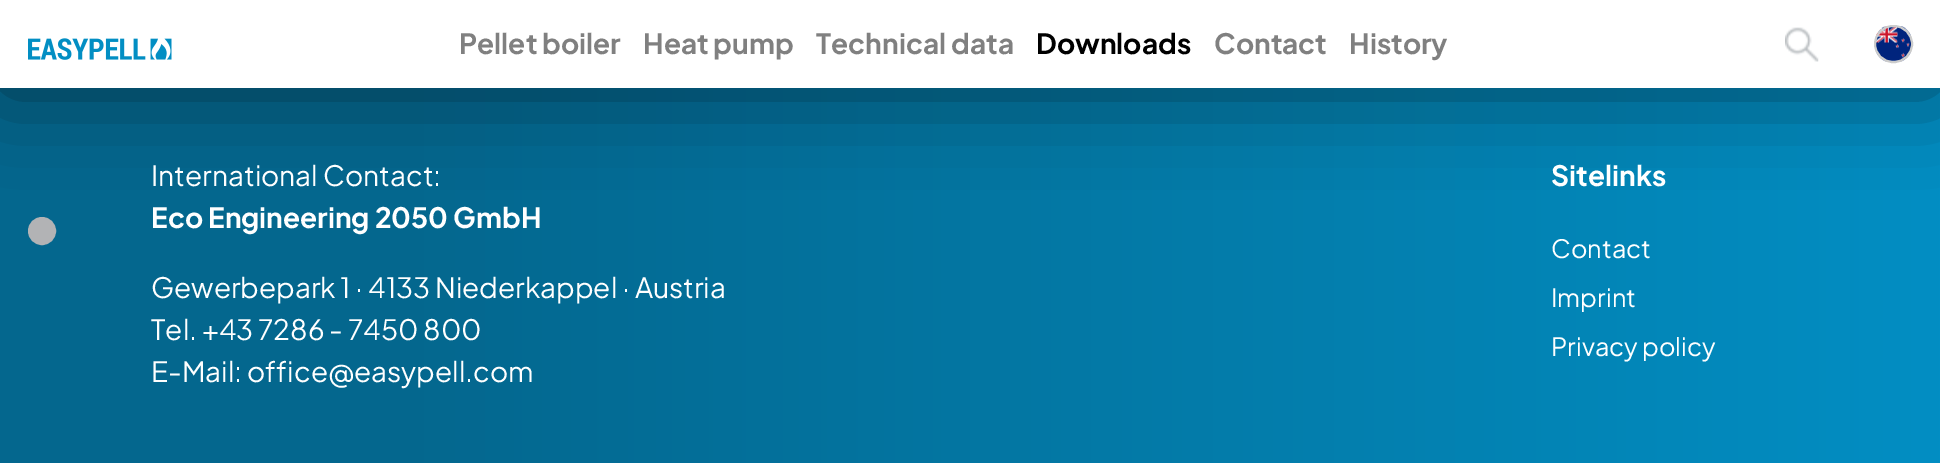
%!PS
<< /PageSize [1940 463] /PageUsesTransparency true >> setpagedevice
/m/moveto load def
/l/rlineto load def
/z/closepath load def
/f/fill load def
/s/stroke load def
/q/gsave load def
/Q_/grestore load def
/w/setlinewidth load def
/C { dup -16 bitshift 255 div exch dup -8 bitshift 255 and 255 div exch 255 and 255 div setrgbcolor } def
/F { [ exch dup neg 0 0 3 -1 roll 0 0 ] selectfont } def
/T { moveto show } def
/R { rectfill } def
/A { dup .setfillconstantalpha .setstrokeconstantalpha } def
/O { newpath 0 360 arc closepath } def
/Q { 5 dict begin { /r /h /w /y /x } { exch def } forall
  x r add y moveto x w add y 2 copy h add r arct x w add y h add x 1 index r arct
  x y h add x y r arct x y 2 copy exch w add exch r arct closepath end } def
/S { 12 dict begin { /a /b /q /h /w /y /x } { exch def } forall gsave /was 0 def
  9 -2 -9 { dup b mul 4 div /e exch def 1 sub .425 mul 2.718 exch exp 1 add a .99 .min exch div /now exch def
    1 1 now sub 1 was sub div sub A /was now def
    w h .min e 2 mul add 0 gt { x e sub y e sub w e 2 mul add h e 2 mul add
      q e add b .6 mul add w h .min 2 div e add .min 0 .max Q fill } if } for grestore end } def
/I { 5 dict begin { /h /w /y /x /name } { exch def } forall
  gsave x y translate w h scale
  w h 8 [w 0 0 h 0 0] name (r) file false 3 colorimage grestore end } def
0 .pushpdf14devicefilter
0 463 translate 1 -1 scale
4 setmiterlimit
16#FFFFFF C
0 0 1940 463 R
q 0 88 m 1940 0 l 0 375 l -1940 0 l z clip newpath
<< /ShadingType 2 /ColorSpace /DeviceRGB /Coords [0 287 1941 287] /Extend [true true] /Function << /FunctionType 3 /Domain [0 1] /Functions [<< /FunctionType 2 /Domain [0 1] /C0 [.016 .404 .557] /C1 [.016 .404 .557] /N 1 >> << /FunctionType 2 /Domain [0 1] /C0 [.016 .404 .557] /C1 [.008 .557 .765] /N 1 >>] /Bounds [.2] /Encode [0 1 0 1] >> >> shfill Q_
16#B2B3B5 C
42 231 13 O q f Q_
2 w
s
16#000000 C
0 4 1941 87 0 44 .5 S
16#FFFFFF C
0 0 1940 88 R
(1.rgb) 28 38 144 22 I
/PlusJakartaSans-Bold 28 F
16#808080 C
(Pellet boiler) 459 54 T
(Heat pump) 643 54 T
(Technical data) 816 54 T
16#000000 C
(Downloads) 1036 54 T
16#808080 C
(Contact) 1214 54 T
(History) 1349 54 T
(2.rgb) 1785 27 34 35 I
(3.rgb) 1876 26 35 36 I
16#CCCCCC C
1875 26 37 36 18 Q s
/PlusJakartaSans-Regular 28 F
16#FFFFFF C
(International Contact:) 151 186 T
/PlusJakartaSans-Bold 28 F
(Eco Engineering 2050 GmbH) 151 228 T
/PlusJakartaSans-Regular 28 F
(Gewerbepark 1 · 4133 Niederkappel · Austria) 151 298 T
(Tel. +43 7286 - 7450 800) 151 340 T
(E-Mail: office@easypell.com) 151 382 T
/PlusJakartaSans-Bold 28 F
(Sitelinks) 1551 186 T
/PlusJakartaSans-Regular 25.25 F
(Contact) 1551 258 T
(Imprint) 1551 307 T
(Privacy policy) 1551 356 T
.poppdf14devicefilter showpage
